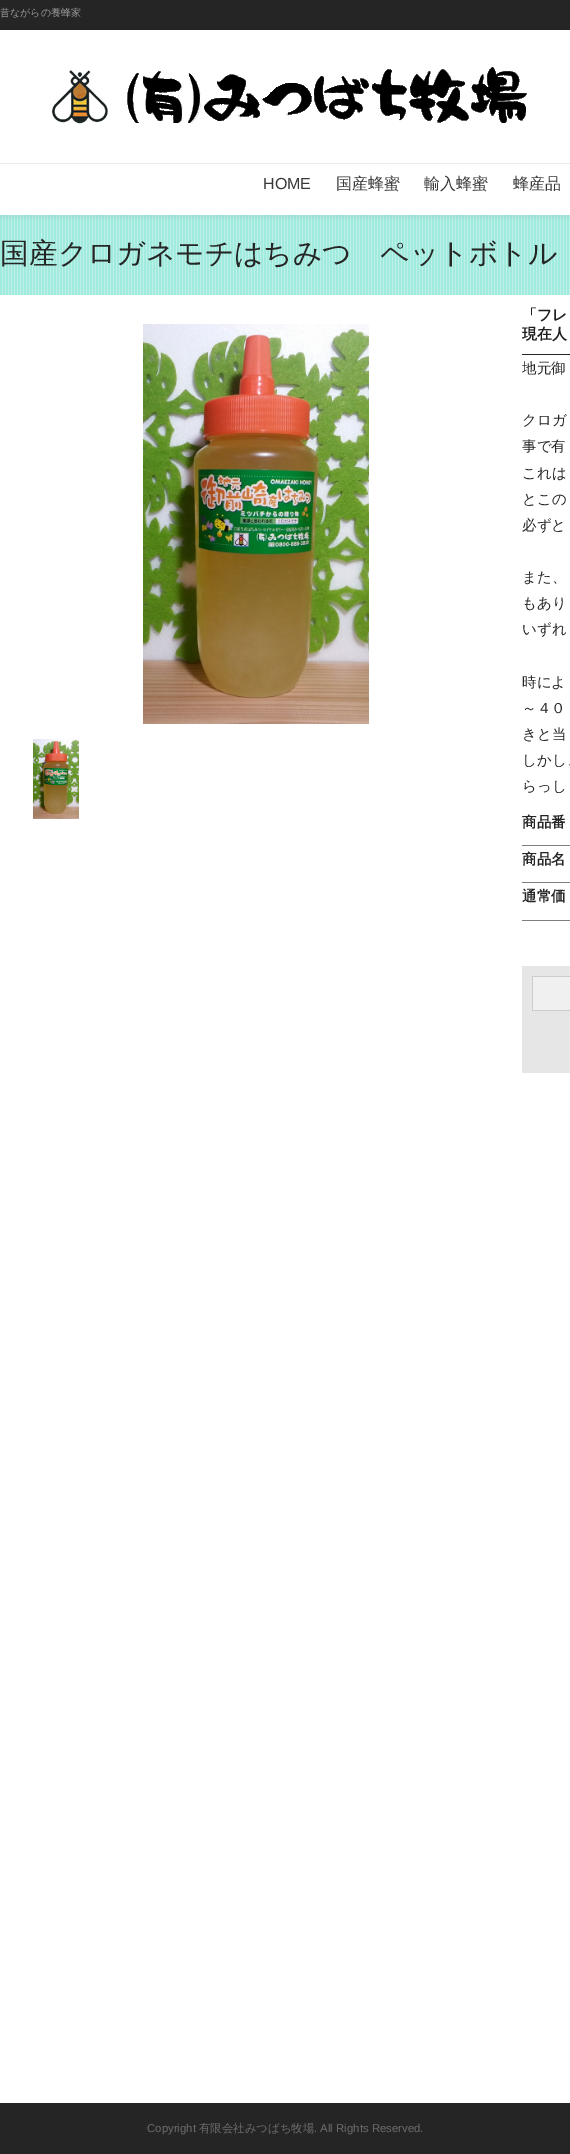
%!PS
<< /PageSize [570 2154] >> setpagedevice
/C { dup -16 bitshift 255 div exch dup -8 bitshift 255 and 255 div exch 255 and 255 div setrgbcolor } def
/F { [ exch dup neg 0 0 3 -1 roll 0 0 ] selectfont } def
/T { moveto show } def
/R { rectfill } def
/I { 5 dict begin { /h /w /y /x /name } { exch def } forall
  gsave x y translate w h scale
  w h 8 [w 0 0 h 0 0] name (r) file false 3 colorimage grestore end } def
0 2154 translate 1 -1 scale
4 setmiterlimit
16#FFFFFF C
0 0 570 2154 R
16#252525 C
0 0 570 30 R
/WenQuanYiZenHei-Medium 10 F
16#999999 C
(昔ながらの養蜂家) 0 16 T
(1.rgb) 52 67 475 57 I
16#E9E9E9 C
0 163 570 1 R
/LiberationSans-Regular 16 F
16#383838 C
(HOME) 263 189 T
/WenQuanYiZenHei-Medium 16 F
(国産蜂蜜) 336 189 T
(輸入蜂蜜) 424 189 T
(蜂産品) 513 189 T
(2.rgb) 0 215 570 80 I
/WenQuanYiZenHei-Medium 28.75 F
16#252525 C
(国産クロガネモチはちみつ　ペットボトル) 0 263 T
(3.rgb) 143 324 226 400 I
(4.rgb) 33 739 46 80 I
522 354 48 1 R
/WenQuanYiZenHei-Bold 15 F
16#1E1E1E C
(「フレ) 522 320 T
(現在人) 522 339 T
/WenQuanYiZenHei-Medium 14.5 F
16#252525 C
(地元御) 522 373 T
(クロガ) 522 425 T
(事で有) 522 451 T
(これは) 522 478 T
(とこの) 522 504 T
(必ずと) 522 530 T
(また、) 522 582 T
(もあり) 522 608 T
(いずれ) 522 634 T
(時によ) 522 687 T
(～４０) 522 713 T
(きと当) 522 739 T
(しかし、) 522 765 T
(らっし) 522 791 T
/WenQuanYiZenHei-Bold 14.5 F
(商品番) 522 827 T
16#7F7F7F C
522 845 48 1 R
16#252525 C
(商品名) 522 864 T
16#7F7F7F C
522 882 48 1 R
16#252525 C
(通常価) 522 901 T
16#7F7F7F C
522 920 48 1 R
16#E6E6E6 C
522 966 48 107 R
16#F0F0F0 C
533 977 37 33 R
16#CCCCCC C
532 976 38 1 R
532 1010 38 1 R
532 976 1 35 R
16#252525 C
0 2103 570 51 R
/LiberationSans-Regular 11.4 F
16#6D6D6D C
(Copyright) 147 2132 T
/WenQuanYiZenHei-Medium 11.4 F
(有限会社みつばち牧場) 199 2132 T
/LiberationSans-Regular 11.4 F
(. All Rights Reserved.) 314 2132 T
showpage
